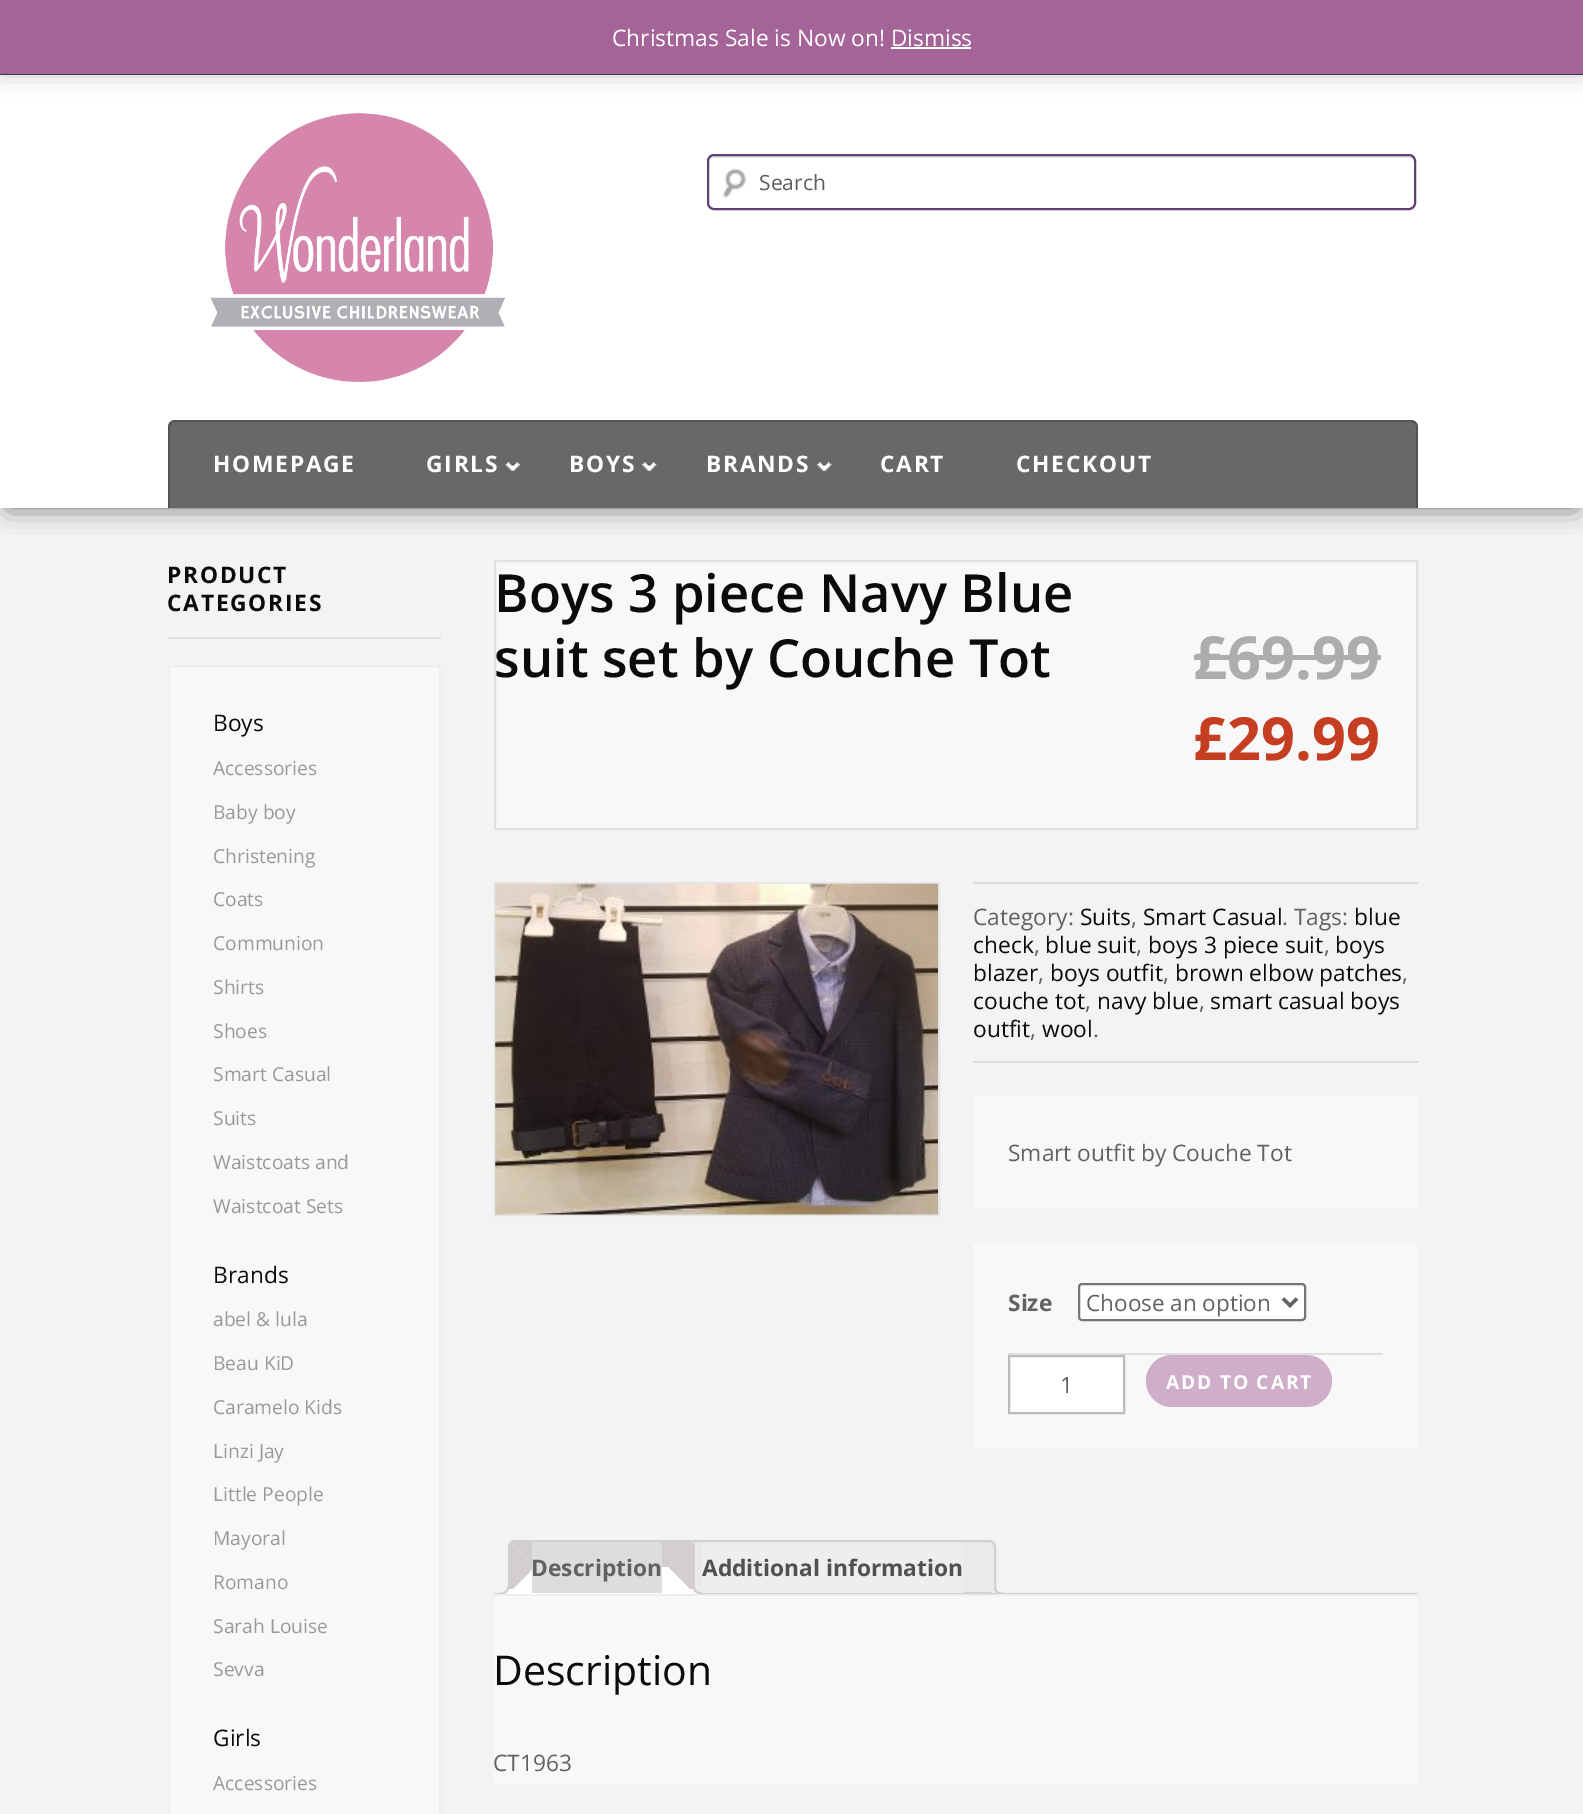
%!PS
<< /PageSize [1583 1814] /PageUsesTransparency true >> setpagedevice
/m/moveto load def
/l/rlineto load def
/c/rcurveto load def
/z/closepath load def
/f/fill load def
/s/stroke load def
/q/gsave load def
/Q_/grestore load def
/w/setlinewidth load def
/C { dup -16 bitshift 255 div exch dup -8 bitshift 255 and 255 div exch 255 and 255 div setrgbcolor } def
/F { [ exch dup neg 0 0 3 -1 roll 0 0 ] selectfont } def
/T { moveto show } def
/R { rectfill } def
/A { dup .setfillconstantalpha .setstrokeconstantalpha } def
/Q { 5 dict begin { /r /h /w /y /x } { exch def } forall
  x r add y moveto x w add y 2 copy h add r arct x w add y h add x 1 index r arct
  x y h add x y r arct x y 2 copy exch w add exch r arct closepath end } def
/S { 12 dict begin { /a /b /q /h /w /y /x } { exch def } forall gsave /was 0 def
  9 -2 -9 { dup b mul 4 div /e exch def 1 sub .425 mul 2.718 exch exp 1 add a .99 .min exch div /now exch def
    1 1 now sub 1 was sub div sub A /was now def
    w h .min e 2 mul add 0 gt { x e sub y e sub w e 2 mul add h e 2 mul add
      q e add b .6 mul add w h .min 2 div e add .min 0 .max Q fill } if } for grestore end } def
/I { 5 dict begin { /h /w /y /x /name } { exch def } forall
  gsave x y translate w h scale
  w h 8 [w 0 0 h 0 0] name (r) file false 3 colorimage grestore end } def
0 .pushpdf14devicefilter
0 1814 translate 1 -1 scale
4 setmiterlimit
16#F3F3F3 C
0 0 1583 1814 R
16#444444 C
0 74 1583 1 R
16#555555 C
9 91 1566 415 0 13 1 S
16#FFFFFF C
0 75 1583 433 R
16#000000 C
0 2 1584 73 0 11.5 .2 S
16#A46497 C
0 0 1583 74 R
/OpenSans-Regular 22.75 F
16#FFFFFF C
(Christmas Sale is Now on! Dismiss) 612 46 T
891 47 80 2 R
(1.rgb) 210 113 296 269 I
(2.rgb) 722 168 24 30 I
16#E6E6E6 C
714 158 m 695 0 l 3 0 5 2 5 5 c 0 -2 l 0 -3 -2 -5 -5 -5 c -695 0 l -3 0 -5 2 -5 5 c 0 2 l 0 -3 2 -5 5 -5 c z f
16#614074 C
2 w
708 155 707 54 6 Q s
/OpenSans-Regular 21 F
16#5B5D5F C
(Search) 759 190 T
16#686868 C
175 420 m 1236 0 l 4 0 7 3 7 7 c 0 81 l -1250 0 l 0 -81 l 0 -4 3 -7 7 -7 c z f
0.2 A
16#000000 C
175 420 m 1235 0 l 4 0 8 3 8 7 c 0 81 l -1250 0 l 0 -81 l 0 -4 3 -7 7 -7 c z 175 422 m 1235 0 l 3 0 6 2 6 5 c 0 81 l -1246 0 l 0 -81 l 0 -3 2 -5 5 -5 c z eofill
/OpenSans-Bold 22.75 F
1 A
16#FFFFFF C
213 472 m 1.75 0 (HOMEPAGE) ashow
426 472 m 1.75 0 (GIRLS) ashow
(3.rgb) 505 460 15 11 I
569 472 m 1.75 0 (BOYS) ashow
(4.rgb) 642 460 15 11 I
706 472 m 1.75 0 (BRANDS) ashow
(4.rgb) 817 460 15 11 I
880 472 m 1.75 0 (CART) ashow
1016 472 m 1.75 0 (CHECKOUT) ashow
16#E4DEDE C
168 637 273 2 R
16#0B0B0B C
167 583 m 1.75 0 (PRODUCT) ashow
167 611 m 1.75 0 (CATEGORIES) ashow
16#F8F8F8 C
169 666 m 271 0 l 0 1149 l -271 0 l z q f Q_
16#EFEFEF C
s
/OpenSans-Regular 22.75 F
16#0B0B0B C
(Boys) 213 731 T
/OpenSans-Regular 19.25 F
16#999999 C
(Accessories) 213 775 T
(Baby boy) 213 819 T
(Christening) 213 863 T
(Coats) 213 906 T
(Communion) 213 950 T
(Shirts) 213 994 T
(Shoes) 213 1038 T
(Smart Casual) 213 1081 T
(Suits) 213 1125 T
(Waistcoats and) 213 1169 T
(Waistcoat Sets) 213 1213 T
/OpenSans-Regular 22.75 F
16#0B0B0B C
(Brands) 213 1283 T
/OpenSans-Regular 19.25 F
16#999999 C
(abel & lula) 213 1326 T
(Beau KiD) 213 1370 T
(Caramelo Kids) 213 1414 T
(Linzi Jay) 213 1458 T
(Little People) 213 1501 T
(Mayoral) 213 1545 T
(Romano) 213 1589 T
(Sarah Louise) 213 1633 T
(Sevva) 213 1676 T
/OpenSans-Regular 22.75 F
16#0B0B0B C
(Girls) 213 1746 T
/OpenSans-Regular 19.25 F
16#999999 C
(Accessories) 213 1790 T
16#F8F8F8 C
495 561 m 922 0 l 0 268 l -922 0 l z q f Q_
16#E1E1E1 C
s
/OpenSans-SemiBold 52.5 F
16#0B0B0B C
(Boys 3 piece Navy Blue) 494 612 T
(suit set by Couche Tot) 494 677 T
/OpenSans-Bold 59.5 F
16#ADADAD C
(£69.99) 1193 679 T
1194 655 187 5 R
16#C63E22 C
(£29.99) 1193 760 T
16#E5E5E5 C
495 883 444 332 rectstroke
(5.rgb) 495 883 443 332 I
16#DBDBDB C
973 882 445 2 R
973 1061 445 2 R
/OpenSans-Regular 22.75 F
16#626262 C
(Category:) 973 925 T
16#0B0B0B C
(Suits) 1080 925 T
16#626262 C
(,) 1131 925 T
16#0B0B0B C
(Smart Casual) 1143 925 T
16#626262 C
(. Tags:) 1282 925 T
16#0B0B0B C
(blue) 1354 925 T
(check) 973 953 T
16#626262 C
(,) 1034 953 T
16#0B0B0B C
(blue suit) 1045 953 T
16#626262 C
(,) 1136 953 T
16#0B0B0B C
(boys 3 piece suit) 1148 953 T
16#626262 C
(,) 1324 953 T
16#0B0B0B C
(boys) 1335 953 T
(blazer) 973 981 T
16#626262 C
(,) 1038 981 T
16#0B0B0B C
(boys outfit) 1050 981 T
16#626262 C
(,) 1163 981 T
16#0B0B0B C
(brown elbow patches) 1175 981 T
16#626262 C
(,) 1402 981 T
16#0B0B0B C
(couche tot) 973 1009 T
16#626262 C
(,) 1085 1009 T
16#0B0B0B C
(navy blue) 1097 1009 T
16#626262 C
(,) 1199 1009 T
16#0B0B0B C
(smart casual boys) 1210 1009 T
(outfit) 973 1037 T
16#626262 C
(,) 1030 1037 T
16#0B0B0B C
(wool) 1042 1037 T
16#626262 C
(.) 1093 1037 T
16#F8F8F8 C
973 1096 445 113 R
16#626262 C
(Smart outfit by Couche Tot) 1008 1161 T
16#F8F8F8 C
973 1244 445 205 R
/OpenSans-Bold 22.75 F
16#626262 C
(Size) 1008 1311 T
16#FFFFFF C
1079 1284 226 36 3 Q q f Q_
16#767676 C
s
16#626262 C
3.5 w
1283 1298.5 m 7 7 l 7 -7 l s
/OpenSans-Regular 22.5 F
(Choose an option) 1086 1311 T
16#DFDFDF C
1008 1353 375 2 R
16#FFFFFF C
1009 1356 m 115 0 l 0 57 l -115 0 l z q f Q_
16#BBBBBB C
2 w
s
16#626262 C
(1) 1060 1393 T
16#CEAEC8 C
1146 1355 186 52 26 Q f
/OpenSans-Bold 19.25 F
16#FFFFFF C
1166 1389 m 1.75 0 (ADD TO CART) ashow
16#F8F8F8 C
494 1540 924 245 R
16#F3F3F3 C
499 1540 m 914 0 l 3 0 5 2 5 5 c 0 51 l -924 0 l 0 -51 l 0 -3 2 -5 5 -5 c z f
16#EFEFEF C
494 1594 924 2 R
16#EBE9EB C
684 1541 m 305 0 l 3.5 0 6 2.5 6 6 c 0 46 l -317 0 l 0 -46 l 0 -3.5 2.5 -6 6 -6 c z q f Q_
16#D3CED2 C
s
16#EBE9EB C
991 1589 m 0 1.5 0 3.5 .5 5 c 7.5 0 l -2.5 -.5 -4 -2.5 -5 -5 c z f
16#D3CED2 C
994 1585.5 m 9 0 l 0 8.5 l -4.5 0 -9 -1.5 -9 -7 c z 996 1585.5 m 7 0 l 0 7 l -3.5 0 -7 -1 -7 -5.5 c z eofill
494 1593 924 1 R
16#FFFFFF C
515 1540 m 173 0 l 4 0 7 3 7 7 c 0 47 l -187 0 l 0 -47 l 0 -4 3 -7 7 -7 c z f
16#D3CED2 C
514 1540 m 174 0 l 2 0 4 1 5 2 c -25 25 l -133 0 l -25 -25 l 1 -1 2 -2 4 -2 c z f
693 1542 m -25 25 l 27 27 l 0 -49 l z f
16#FFFFFF C
694 1594 m -26 -27 l -133 0 l -27 27 l z f
16#D3CED2 C
510 1542 m -1 1 -2 3 -2 5 c 0 47 l 27 -27 l z f
16#DDDDDD C
537 1542 m 120 0 l 3 0 5 2 5 5 c 0 46 l -130 0 l 0 -46 l 0 -3 2 -5 5 -5 c z f
/OpenSans-Bold 22.75 F
16#626262 C
(Description) 531 1576 T
16#FFFFFF C
504 1594 m 8.5 0 l .5 -1.5 .5 -3.5 .5 -5 c -4 0 l -.5 2.5 -2.5 4.5 -5 5 c z f
16#D3CED2 C
500.5 1585.5 m 8.5 0 l 0 6 -2.5 8.5 -8.5 8.5 c z 500.5 1585.5 m 7 0 l 0 5 -2 7 -7 7 c z eofill
16#FFFFFF C
690 1589 m 0 1.5 0 3.5 .5 5 c 7.5 0 l -2.5 -.5 -4 -2.5 -5 -5 c z f
16#D3CED2 C
693 1585.5 m 9 0 l 0 8.5 l -4.5 0 -9 -1.5 -9 -7 c z 695 1585.5 m 7 0 l 0 7 l -3.5 0 -7 -1 -7 -5.5 c z eofill
16#EEEEEE C
707 1542 m 251 0 l 3 0 5 2 5 5 c 0 46 l -261 0 l 0 -46 l 0 -3 2 -5 5 -5 c z f
16#515151 C
(Additional information) 702 1576 T
/OpenSans-Regular 41 F
16#0B0B0B C
(Description) 493 1685 T
/OpenSans-Regular 22.75 F
16#626262 C
(CT1963) 493 1771 T
.poppdf14devicefilter showpage
